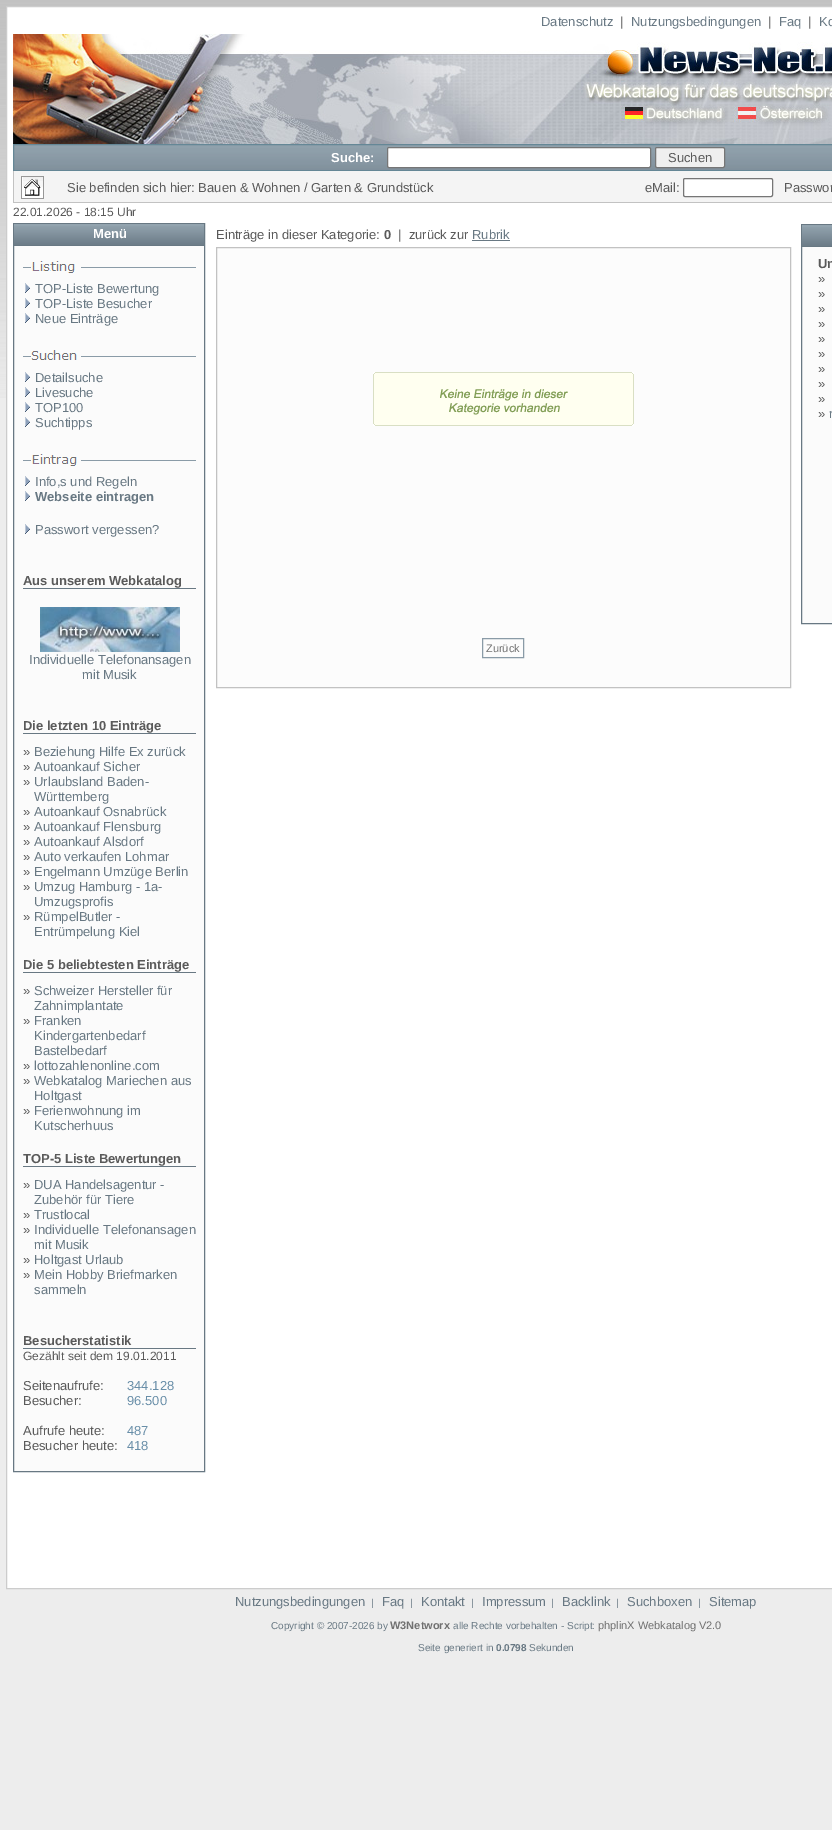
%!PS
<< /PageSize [832 1830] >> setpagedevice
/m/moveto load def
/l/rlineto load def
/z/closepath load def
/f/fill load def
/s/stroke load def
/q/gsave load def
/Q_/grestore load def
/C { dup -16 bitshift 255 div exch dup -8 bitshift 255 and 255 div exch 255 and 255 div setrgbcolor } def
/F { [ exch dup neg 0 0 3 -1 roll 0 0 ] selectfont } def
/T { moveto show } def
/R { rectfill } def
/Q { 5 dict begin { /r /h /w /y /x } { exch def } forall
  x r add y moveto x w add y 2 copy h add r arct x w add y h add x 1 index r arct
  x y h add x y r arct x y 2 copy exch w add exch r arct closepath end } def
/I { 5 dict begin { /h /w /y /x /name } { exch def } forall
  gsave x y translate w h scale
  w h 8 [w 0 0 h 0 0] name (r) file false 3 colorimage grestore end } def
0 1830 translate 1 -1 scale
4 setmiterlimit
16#EDEDED C
0 0 832 1830 R
(1.rgb) 0 0 832 398 I
16#FFFFFF C
6.5 6.5 m 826 0 l 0 1582 l -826 0 l z q f Q_
16#CCCCCC C
s
/LiberationSans-Regular 13 F
16#687883 C
(Datenschutz) 541 26 T
16#5A5A5A C
(|) 620 26 T
16#687883 C
(Nutzungsbedingungen) 631 26 T
16#5A5A5A C
(|) 768 26 T
16#687883 C
(Faq) 779 26 T
16#5A5A5A C
(|) 808 26 T
16#687883 C
(Ko) 819 26 T
(2.rgb) 13 34 819 110 I
(3.rgb) 14 145 818 25 I
16#658796 C
13.5 144.5 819 26 rectstroke
/LiberationSans-Bold 13 F
16#FFFFFF C
(Suche:) 331 162 T
387.5 147.5 263 20 1.5 Q q f Q_
16#767676 C
s
16#EFEFEF C
655.5 147.5 69 20 1.5 Q q f Q_
16#767676 C
s
/LiberationSans-Regular 13 F
16#5A5A5A C
(Suchen) 668 162 T
16#F4F4F4 C
14 171 818 31 R
16#C2C2C2 C
13 202 819 1 R
13 171 1 32 R
(4.rgb) 21 176 23 23 I
16#5A5A5A C
(Sie befinden sich hier: Bauen & Wohnen / Garten & Grundstück) 67 192 T
(eMail:) 645 192 T
16#FFFFFF C
683.5 178.5 89 18 1.5 Q q f Q_
16#767676 C
s
16#5A5A5A C
(Passwor) 784 192 T
/LiberationSans-Regular 12 F
(22.01.2026 - 18:15 Uhr) 13 216 T
16#FBFBFB C
14 246 190 1225 R
16#687883 C
13.5 223.5 191 1248 rectstroke
16#93A4AF C
14 224 190 2 R
(5.rgb) 14 226 190 19 I
16#687883 C
14 245 190 1 R
/LiberationSans-Bold 13 F
16#FFFFFF C
(Menü) 93 238 T
(6.rgb) 23 261 173 12 I
(7.rgb) 25 283 5 10 I
/LiberationSans-Regular 13 F
16#687883 C
(TOP-Liste Bewertung) 35 293 T
(7.rgb) 25 298 5 10 I
(TOP-Liste Besucher) 35 308 T
(7.rgb) 25 313 5 10 I
(Neue Einträge) 35 323 T
(8.rgb) 23 350 173 10 I
(7.rgb) 25 372 5 10 I
(Detailsuche) 35 382 T
(7.rgb) 25 387 5 10 I
(Livesuche) 35 397 T
(7.rgb) 25 402 5 10 I
(TOP100) 35 412 T
(7.rgb) 25 417 5 10 I
(Suchtipps) 35 427 T
(9.rgb) 23 454 173 12 I
(7.rgb) 25 476 5 10 I
(Info,s und Regeln) 35 486 T
(7.rgb) 25 491 5 10 I
/LiberationSans-Bold 13 F
(Webseite eintragen) 35 501 T
(7.rgb) 25 524 5 10 I
/LiberationSans-Regular 13 F
(Passwort vergessen?) 35 534 T
/LiberationSans-Bold 13 F
16#5A5A5A C
(Aus unserem Webkatalog) 23 585 T
16#687883 C
23 588 173 1 R
(10.rgb) 40 607 140 45 I
/LiberationSans-Regular 13 F
(Individuelle Telefonansagen) 29 664 T
(mit Musik) 82 679 T
/LiberationSans-Bold 13 F
16#5A5A5A C
(Die letzten 10 Einträge) 23 730 T
16#687883 C
23 733 173 1 R
/LiberationSans-Regular 13 F
16#5A5A5A C
(») 23 756 T
16#687883 C
(Beziehung Hilfe Ex zurück) 34 756 T
16#5A5A5A C
(») 23 771 T
16#687883 C
(Autoankauf Sicher) 34 771 T
16#5A5A5A C
(») 23 786 T
16#687883 C
(Urlaubsland Baden-) 34 786 T
(Württemberg) 34 801 T
16#5A5A5A C
(») 23 816 T
16#687883 C
(Autoankauf Osnabrück) 34 816 T
16#5A5A5A C
(») 23 831 T
16#687883 C
(Autoankauf Flensburg) 34 831 T
16#5A5A5A C
(») 23 846 T
16#687883 C
(Autoankauf Alsdorf) 34 846 T
16#5A5A5A C
(») 23 861 T
16#687883 C
(Auto verkaufen Lohmar) 34 861 T
16#5A5A5A C
(») 23 876 T
16#687883 C
(Engelmann Umzüge Berlin) 34 876 T
16#5A5A5A C
(») 23 891 T
16#687883 C
(Umzug Hamburg - 1a-) 34 891 T
(Umzugsprofis) 34 906 T
16#5A5A5A C
(») 23 921 T
16#687883 C
(RümpelButler -) 34 921 T
(Entrümpelung Kiel) 34 936 T
/LiberationSans-Bold 13 F
16#5A5A5A C
(Die 5 beliebtesten Einträge) 23 969 T
16#687883 C
23 972 173 1 R
/LiberationSans-Regular 13 F
16#5A5A5A C
(») 23 995 T
16#687883 C
(Schweizer Hersteller für) 34 995 T
(Zahnimplantate) 34 1010 T
16#5A5A5A C
(») 23 1025 T
16#687883 C
(Franken) 34 1025 T
(Kindergartenbedarf) 34 1040 T
(Bastelbedarf) 34 1055 T
16#5A5A5A C
(») 23 1070 T
16#687883 C
(lottozahlenonline.com) 34 1070 T
16#5A5A5A C
(») 23 1085 T
16#687883 C
(Webkatalog Mariechen aus) 34 1085 T
(Holtgast) 34 1100 T
16#5A5A5A C
(») 23 1115 T
16#687883 C
(Ferienwohnung im) 34 1115 T
(Kutscherhuus) 34 1130 T
/LiberationSans-Bold 13 F
16#5A5A5A C
(TOP-5 Liste Bewertungen) 23 1163 T
16#687883 C
23 1166 173 1 R
/LiberationSans-Regular 13 F
16#5A5A5A C
(») 23 1189 T
16#687883 C
(DUA Handelsagentur -) 34 1189 T
(Zubehör für Tiere) 34 1204 T
16#5A5A5A C
(») 23 1219 T
16#687883 C
(Trustlocal) 34 1219 T
16#5A5A5A C
(») 23 1234 T
16#687883 C
(Individuelle Telefonansagen) 34 1234 T
(mit Musik) 34 1249 T
16#5A5A5A C
(») 23 1264 T
16#687883 C
(Holtgast Urlaub) 34 1264 T
16#5A5A5A C
(») 23 1279 T
16#687883 C
(Mein Hobby Briefmarken) 34 1279 T
(sammeln) 34 1294 T
/LiberationSans-Bold 13 F
16#5A5A5A C
(Besucherstatistik) 23 1345 T
16#687883 C
23 1348 173 1 R
/LiberationSans-Regular 12 F
16#5A5A5A C
(Gezählt seit dem 19.01.2011) 23 1360 T
/LiberationSans-Regular 13 F
(Seitenaufrufe:) 23 1390 T
(Besucher:) 23 1405 T
(Aufrufe heute:) 23 1435 T
(Besucher heute:) 23 1450 T
16#688EA8 C
(344.128) 127 1390 T
(96.500) 127 1405 T
(487) 127 1435 T
(418) 127 1450 T
16#5A5A5A C
(Einträge in dieser Kategorie:) 216 239 T
/LiberationSans-Bold 13 F
(0) 384 239 T
/LiberationSans-Regular 13 F
(|  zurück zur) 398 239 T
16#687883 C
(Rubrik) 472 239 T
472 240 38 1 R
16#FCFCFC C
216.5 247.5 m 574 0 l 0 440 l -574 0 l z q f Q_
16#C2C2C2 C
s
(11.rgb) 373 372 261 54 I
16#8A9BA7 C
482.5 638.5 41 19 rectstroke
/LiberationSans-Regular 11 F
16#707070 C
(Zurück) 486 652 T
16#FBFBFB C
802 247 30 376 R
16#687883 C
801.5 224.5 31 399 rectstroke
16#93A4AF C
802 225 30 2 R
(12.rgb) 802 227 30 19 I
16#687883 C
802 246 30 1 R
/LiberationSans-Bold 13 F
16#5A5A5A C
(Un) 818 268 T
/LiberationSans-Regular 13 F
(») 818 283 T
(») 818 298 T
(») 818 313 T
(») 818 328 T
(») 818 343 T
(») 818 358 T
(») 818 373 T
(») 818 388 T
(») 818 403 T
(») 818 418 T
16#687883 C
(r) 829 418 T
(Nutzungsbedingungen) 235 1606 T
/LiberationSans-Regular 10 F
(|) 371 1606 T
/LiberationSans-Regular 13 F
(Faq) 382 1606 T
/LiberationSans-Regular 10 F
(|) 410 1606 T
/LiberationSans-Regular 13 F
(Kontakt) 421 1606 T
/LiberationSans-Regular 10 F
(|) 471 1606 T
/LiberationSans-Regular 13 F
(Impressum) 482 1606 T
/LiberationSans-Regular 10 F
(|) 551 1606 T
/LiberationSans-Regular 13 F
(Backlink) 562 1606 T
/LiberationSans-Regular 10 F
(|) 616 1606 T
/LiberationSans-Regular 13 F
(Suchboxen) 627 1606 T
/LiberationSans-Regular 10 F
(|) 698 1606 T
/LiberationSans-Regular 13 F
(Sitemap) 709 1606 T
/LiberationSans-Regular 10 F
(Copyright © 2007-2026 by) 271 1629 T
/LiberationSans-Bold 11 F
16#707070 C
(W3Networx) 390 1629 T
/LiberationSans-Regular 10 F
16#687883 C
(alle Rechte vorbehalten - Script:) 453 1629 T
/LiberationSans-Regular 11 F
16#707070 C
(phplinX Webkatalog V2.0) 598 1629 T
/LiberationSans-Regular 10 F
16#687883 C
(Seite generiert in) 418 1651 T
/LiberationSans-Bold 10 F
(0.0798) 496 1651 T
/LiberationSans-Regular 10 F
(Sekunden) 529 1651 T
showpage
